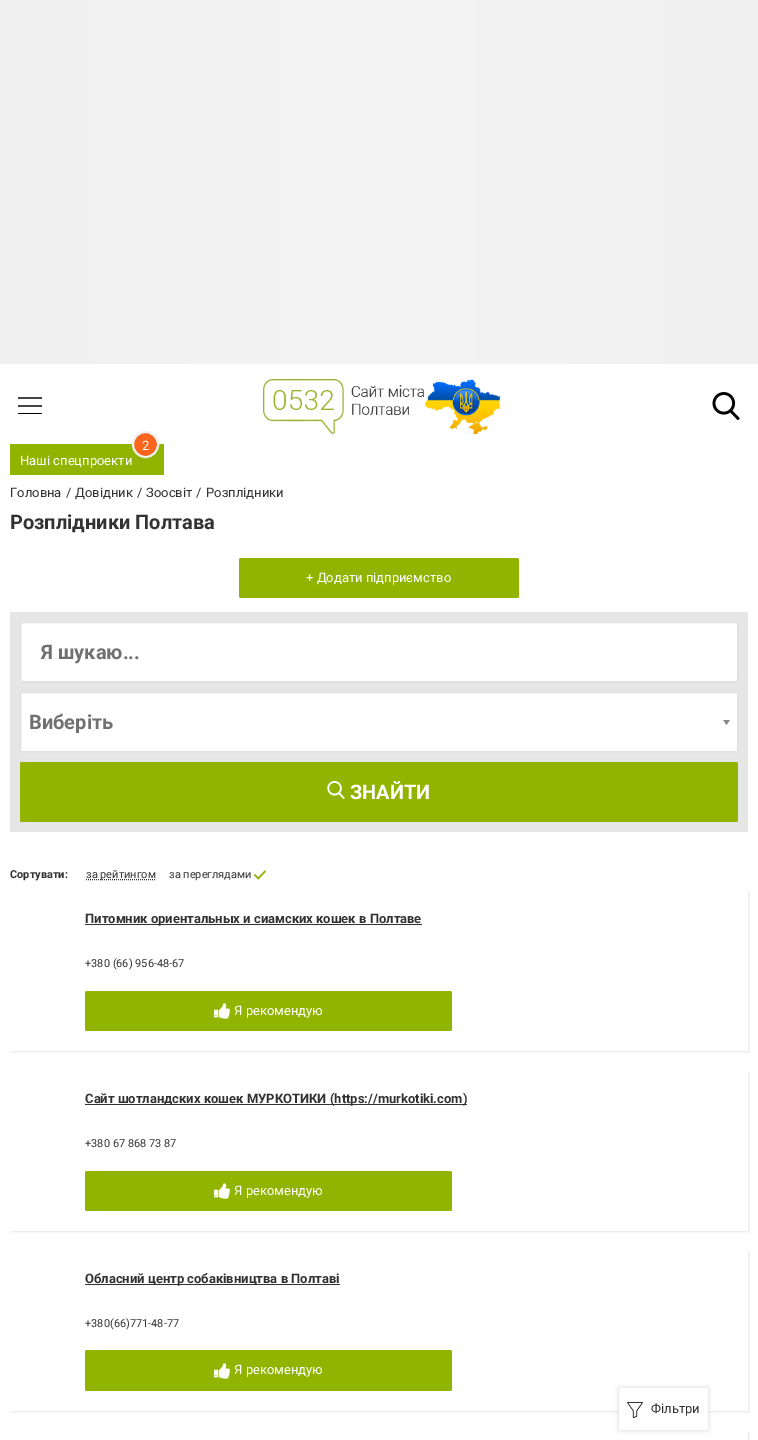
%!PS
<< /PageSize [758 1440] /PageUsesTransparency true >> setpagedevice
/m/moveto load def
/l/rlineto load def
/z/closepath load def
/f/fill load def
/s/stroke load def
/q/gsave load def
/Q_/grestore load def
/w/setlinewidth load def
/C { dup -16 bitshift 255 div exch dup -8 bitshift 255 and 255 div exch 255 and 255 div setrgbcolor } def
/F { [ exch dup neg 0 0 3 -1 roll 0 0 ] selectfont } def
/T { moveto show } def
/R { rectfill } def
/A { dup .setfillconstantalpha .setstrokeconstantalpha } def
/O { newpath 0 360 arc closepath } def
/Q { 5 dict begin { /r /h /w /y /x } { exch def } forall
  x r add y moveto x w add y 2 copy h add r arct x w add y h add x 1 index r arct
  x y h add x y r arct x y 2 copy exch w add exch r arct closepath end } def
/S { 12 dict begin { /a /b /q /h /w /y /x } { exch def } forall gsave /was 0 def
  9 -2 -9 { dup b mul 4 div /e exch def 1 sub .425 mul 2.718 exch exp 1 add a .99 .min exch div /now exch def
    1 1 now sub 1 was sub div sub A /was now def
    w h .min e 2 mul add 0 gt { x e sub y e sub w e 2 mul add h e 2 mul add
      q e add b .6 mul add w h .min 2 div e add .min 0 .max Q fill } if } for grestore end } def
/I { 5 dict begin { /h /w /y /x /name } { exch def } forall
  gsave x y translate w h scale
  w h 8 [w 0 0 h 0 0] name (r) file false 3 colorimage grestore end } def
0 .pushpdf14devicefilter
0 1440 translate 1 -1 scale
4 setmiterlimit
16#FFFFFF C
0 0 758 1440 R
q 0 0 m 758 0 l 0 364 l -758 0 l z clip newpath
<< /ShadingType 2 /ColorSpace /DeviceRGB /Coords [0 182 758 182] /Extend [true true] /Function << /FunctionType 3 /Domain [0 1] /Functions [<< /FunctionType 2 /Domain [0 1] /C0 [.941 .941 .941] /C1 [.957 .957 .957] /N 1 >> << /FunctionType 2 /Domain [0 1] /C0 [.957 .957 .957] /C1 [.941 .941 .941] /N 1 >>] /Bounds [.5] /Encode [0 1 0 1] >> >> shfill Q_
16#000000 C
1.2 w
18 406 m 24 0 l 18 398 m 24 0 l s
18 413 24 1 R
(1.rgb) 263 379 238 55 I
(2.rgb) 712 392 28 28 I
16#90B400 C
10 444 154 31 R
16#FB661C C
145.5 444.5 12.5 O q f Q_
16#F0F0F0 C
2 w
s
/Roboto-Regular 13 F
16#FFFFFF C
(2) 142 450 T
(Наші спецпроекти) 20 465 T
16#323232 C
(Головна) 10 497 T
(/) 66 497 T
(Довідник) 75 497 T
(/) 137 497 T
(Зоосвіт) 146 497 T
(/) 196 497 T
(Розплідники) 206 497 T
/Roboto-Bold 20 F
(Розплідники Полтава) 10 529 T
16#90B400 C
239 558 280 40 2 Q f
/Roboto-Regular 13 F
16#FFFFFF C
(+ Додати підприємство) 306 582 T
16#E6E6E6 C
10 612 738 220 R
16#FFFFFF C
20 622 718 60 3 Q f
0.15 A
16#323232 C
1 w
20.5 622.5 717 59 2.5 Q s
/Roboto-Bold 20 F
1 A
16#707070 C
(Я шукаю...) 41 659 T
16#FFFFFF C
20.5 692.5 m 717 0 l 0 59 l -717 0 l z q f Q_
16#E0E0E0 C
s
16#707070 C
(Виберіть) 29 729 T
(3.rgb) 723 720 7 6 I
16#90B400 C
20 762 718 60 2 Q f
(4.rgb) 327 781 18 18 I
16#FFFFFF C
(ЗНАЙТИ) 350 799 T
/Roboto-Bold 11 F
16#323232 C
(Сортувати:) 10 878 T
[1 1] 0 setdash
86 879.5 m 69.5 0 l s
/Roboto-Regular 11 F
(за рейтингом) 86 878 T
(за переглядами) 169 878 T
(5.rgb) 254 870 12 10 I
q
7 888 m 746 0 l 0 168 l -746 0 l z 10 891 m 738 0 l 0 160 l -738 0 l z eoclip newpath
16#5A5A5A C
11 892 738 160 0 1 .15 S
Q_
85 924 337 1 R
/Roboto-Bold 13 F
(Питомник ориентальных и сиамских кошек в Полтаве) 85 923 T
/Roboto-Regular 11 F
(+380 \(66\) 956-48-67) 85 967 T
16#90B400 C
85 991 367 40 2 Q f
(6.rgb) 214 1003 16 16 I
/Roboto-Regular 13 F
16#FFFFFF C
(Я рекомендую) 234 1015 T
q
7 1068 m 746 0 l 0 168 l -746 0 l z 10 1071 m 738 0 l 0 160 l -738 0 l z eoclip newpath
16#5A5A5A C
11 1072 738 160 0 1 .15 S
Q_
16#323232 C
85 1104 382 1 R
/Roboto-Bold 13 F
(Сайт шотландских кошек МУРКОТИКИ \(https://murkotiki.com\)) 85 1103 T
/Roboto-Regular 11 F
(+380 67 868 73 87) 85 1147 T
16#90B400 C
85 1171 367 40 2 Q f
(6.rgb) 214 1183 16 16 I
/Roboto-Regular 13 F
16#FFFFFF C
(Я рекомендую) 234 1195 T
q
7 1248 m 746 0 l 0 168 l -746 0 l z 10 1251 m 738 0 l 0 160 l -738 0 l z eoclip newpath
16#5A5A5A C
11 1252 738 160 0 1 .15 S
Q_
16#323232 C
85 1284 255 1 R
/Roboto-Bold 13 F
(Обласний центр собаківництва в Полтаві) 85 1283 T
/Roboto-Regular 11 F
(+380\(66\)771-48-77) 85 1327 T
16#90B400 C
85 1350 367 41 2 Q f
(6.rgb) 214 1363 16 16 I
/Roboto-Regular 13 F
16#FFFFFF C
(Я рекомендую) 234 1374 T
q
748 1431 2 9 rectclip
16#5A5A5A C
11 1432 738 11 0 1 .15 S
Q_
16#636363 C
619 1388 89 42 0 2.5 .25 S
16#FFFFFF C
619 1388 89 42 R
(7.rgb) 627 1402 16 16 I
16#323232 C
(Фільтри) 651 1413 T
.poppdf14devicefilter showpage
